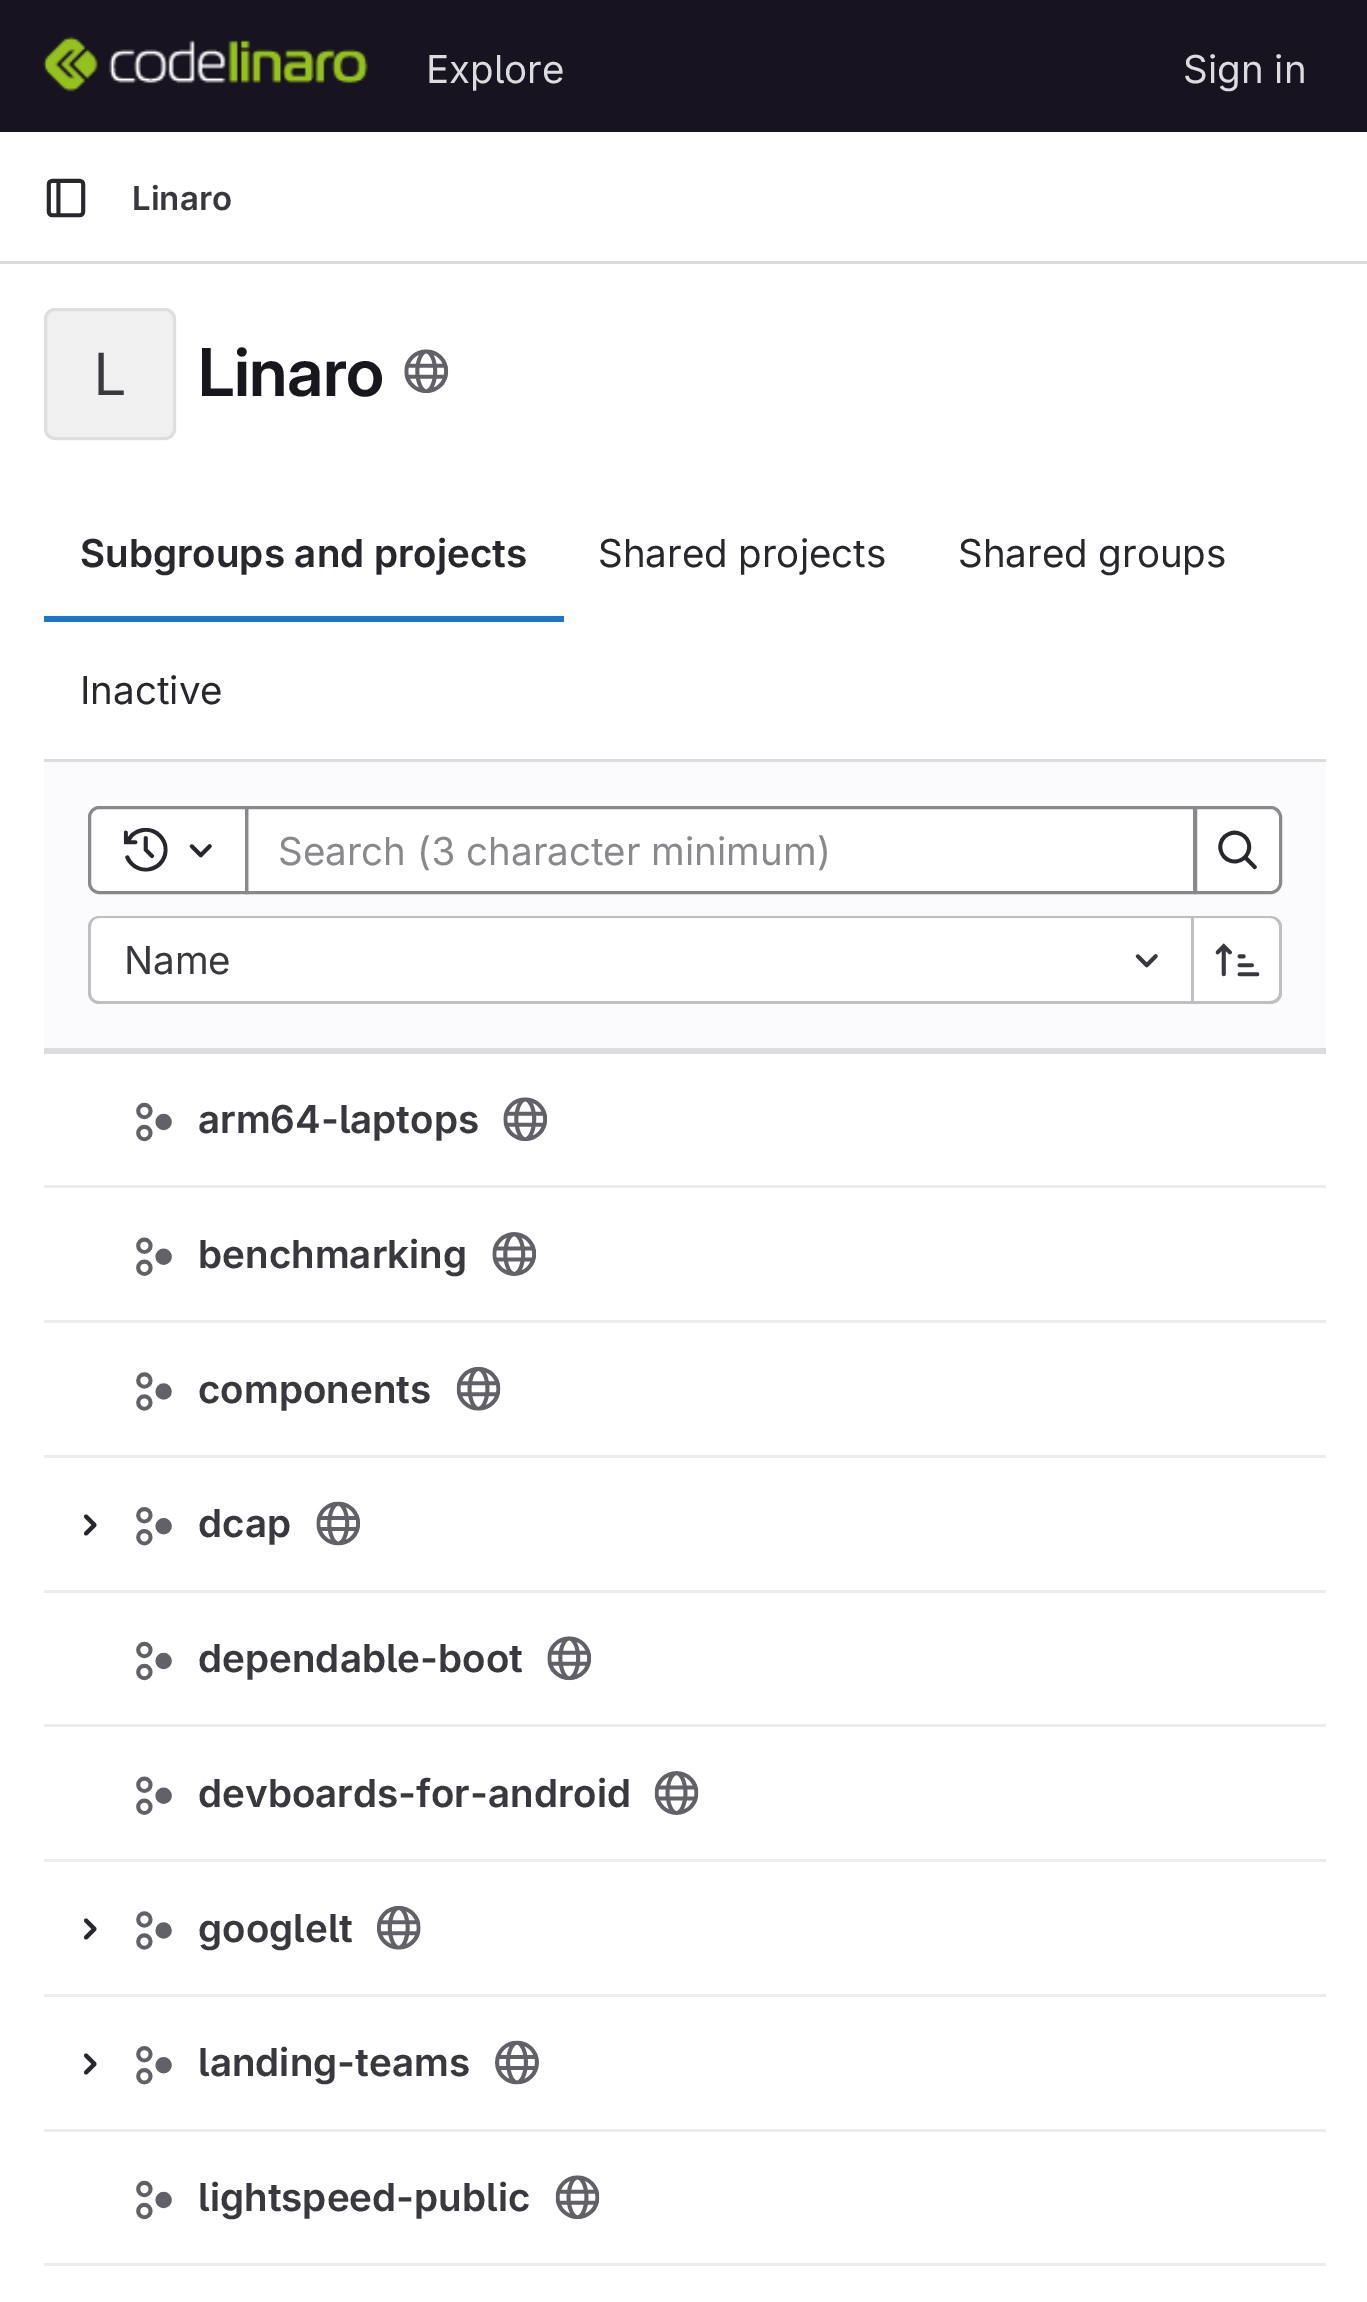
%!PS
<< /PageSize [1367 2302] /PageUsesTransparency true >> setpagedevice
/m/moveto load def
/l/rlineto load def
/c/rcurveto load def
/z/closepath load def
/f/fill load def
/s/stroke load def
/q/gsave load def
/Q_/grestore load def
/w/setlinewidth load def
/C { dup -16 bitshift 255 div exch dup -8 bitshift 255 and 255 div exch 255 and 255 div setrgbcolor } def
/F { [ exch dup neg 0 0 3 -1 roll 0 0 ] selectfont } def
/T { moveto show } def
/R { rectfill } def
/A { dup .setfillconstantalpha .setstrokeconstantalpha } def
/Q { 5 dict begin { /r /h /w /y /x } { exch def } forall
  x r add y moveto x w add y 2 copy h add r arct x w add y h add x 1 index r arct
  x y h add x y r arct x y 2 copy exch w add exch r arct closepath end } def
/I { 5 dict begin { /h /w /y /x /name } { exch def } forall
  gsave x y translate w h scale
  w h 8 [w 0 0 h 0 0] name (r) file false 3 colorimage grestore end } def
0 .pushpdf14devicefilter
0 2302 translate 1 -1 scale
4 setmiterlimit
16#FFFFFF C
0 0 1367 2302 R
16#171321 C
0 0 1367 132 R
(1.rgb) 43 36 325 56 I
/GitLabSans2-Regular 38.5 F
16#DCDCDE C
(Explore) 426 83 T
(Sign in) 1183 83 T
0 261 1367 3 R
(2.rgb) 46 178 40 40 I
/GitLabSans2-SemiBold 33 F
16#3A383F C
(Linaro) 132 210 T
16#F0F0F1 C
44 308 132 132 11 Q f
0.08 A
16#050506 C
3 w
45.5 309.5 129 129 9.5 Q s
/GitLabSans-Regular 58 F
1 A
16#3A383F C
(L) 94 395 T
/GitLabSans-SemiBold 66 F
16#18171D C
198 396 m -.5 0 (Linaro) ashow
(3.rgb) 404 349 45 45 I
16#DCDCDE C
44 1048 1282 6 R
/GitLabSans2-SemiBold 38.5 F
16#28272D C
(Subgroups and projects) 80 567 T
16#1F75CB C
44 616 520 6 R
/GitLabSans2-Regular 38.5 F
16#28272D C
(Shared projects) 598 567 T
(Shared groups) 958 567 T
(Inactive) 80 704 T
16#FBFAFD C
44 762 1282 286 R
16#DCDCDE C
44 759 1282 3 R
16#FFFFFF C
246.5 807.5 m 948 0 l 0 85 l -948 0 l z q f Q_
16#89888D C
s
16#FFFFFF C
99 807.5 m 147.5 0 l 0 85 l -147.5 0 l -5 0 -9.5 -4.5 -9.5 -9.5 c 0 -66 l 0 -5 4.5 -9.5 9.5 -9.5 c z q f Q_
16#89888D C
s
(4.rgb) 123 827 45 45 I
(5.rgb) 189 844 23 14 I
(Search \(3 character minimum\)) 278 865 T
16#FFFFFF C
1195.5 807.5 m 75.5 0 l 5 0 9.5 4.5 9.5 9.5 c 0 66 l 0 5 -4.5 9.5 -9.5 9.5 c -75.5 0 l z q f Q_
16#89888D C
s
(6.rgb) 1218 830 39 40 I
16#FFFFFF C
99 919 m 1092 0 l 0 82 l -1092 0 l -4.5 0 -8 -3.5 -8 -8 c 0 -66 l 0 -4.5 3.5 -8 8 -8 c z f
16#BFBFC3 C
99 916 m 1092 0 l 0 88 l -1092 0 l -6 0 -11 -5 -11 -11 c 0 -66 l 0 -6 5 -11 11 -11 c z 99 918 m 1092 0 l 0 83 l -1092 0 l -5 0 -8 -4 -8 -8 c 0 -66 l 0 -5 3 -9 8 -9 c z eofill
16#3A383F C
(Name) 124 974 T
(7.rgb) 1135 954 23 14 I
16#FFFFFF C
1194 919 m 77 0 l 4.5 0 8 3.5 8 8 c 0 66 l 0 4.5 -3.5 8 -8 8 c -77 0 l z f
16#BFBFC3 C
1194 916 m 76 0 l 7 0 12 5 12 11 c 0 66 l 0 6 -5 11 -12 11 c -76 0 l z 1194 918 m 76 0 l 5 0 9 4 9 9 c 0 66 l 0 4 -4 8 -9 8 c -76 0 l z eofill
1191 916 3 88 R
(8.rgb) 1215 943 45 34 I
16#ECECEF C
44 1185 1282 3 R
(9.rgb) 136 1102 36 40 I
/GitLabSans2-SemiBold 38.5 F
16#3A383F C
(arm64-laptops) 198 1133 T
(10.rgb) 503 1097 44 45 I
16#ECECEF C
44 1320 1282 3 R
(11.rgb) 136 1237 36 39 I
16#3A383F C
(benchmarking) 198 1268 T
(12.rgb) 492 1232 44 44 I
16#ECECEF C
44 1455 1282 3 R
(13.rgb) 136 1372 36 39 I
16#3A383F C
(components) 198 1403 T
(14.rgb) 456 1366 45 45 I
16#ECECEF C
44 1590 1282 3 R
16#28272D C
3.9 w
1 setlinecap
1 setlinejoin
86 1516.5 m 8.5 8.5 l -8.5 8.5 l s
(15.rgb) 136 1507 36 39 I
16#3A383F C
(dcap) 198 1537 T
(16.rgb) 316 1501 44 45 I
16#ECECEF C
44 1724 1282 3 R
(9.rgb) 136 1641 36 40 I
16#3A383F C
(dependable-boot) 198 1672 T
(17.rgb) 547 1636 44 45 I
16#ECECEF C
44 1859 1282 3 R
(18.rgb) 136 1776 36 39 I
16#3A383F C
(devboards-for-android) 198 1807 T
(19.rgb) 654 1771 45 44 I
16#ECECEF C
44 1994 1282 3 R
16#28272D C
86 1920.5 m 8.5 8.5 l -8.5 8.5 l s
(13.rgb) 136 1911 36 39 I
16#3A383F C
(googlelt) 198 1942 T
(20.rgb) 377 1905 44 45 I
16#ECECEF C
44 2129 1282 3 R
16#28272D C
86 2055.5 m 8.5 8.5 l -8.5 8.5 l s
(21.rgb) 136 2046 36 39 I
16#3A383F C
(landing-teams) 198 2076 T
(22.rgb) 495 2040 44 45 I
16#ECECEF C
44 2263 1282 3 R
(9.rgb) 136 2180 36 40 I
16#3A383F C
(lightspeed-public) 198 2211 T
(23.rgb) 555 2175 45 45 I
.poppdf14devicefilter showpage
